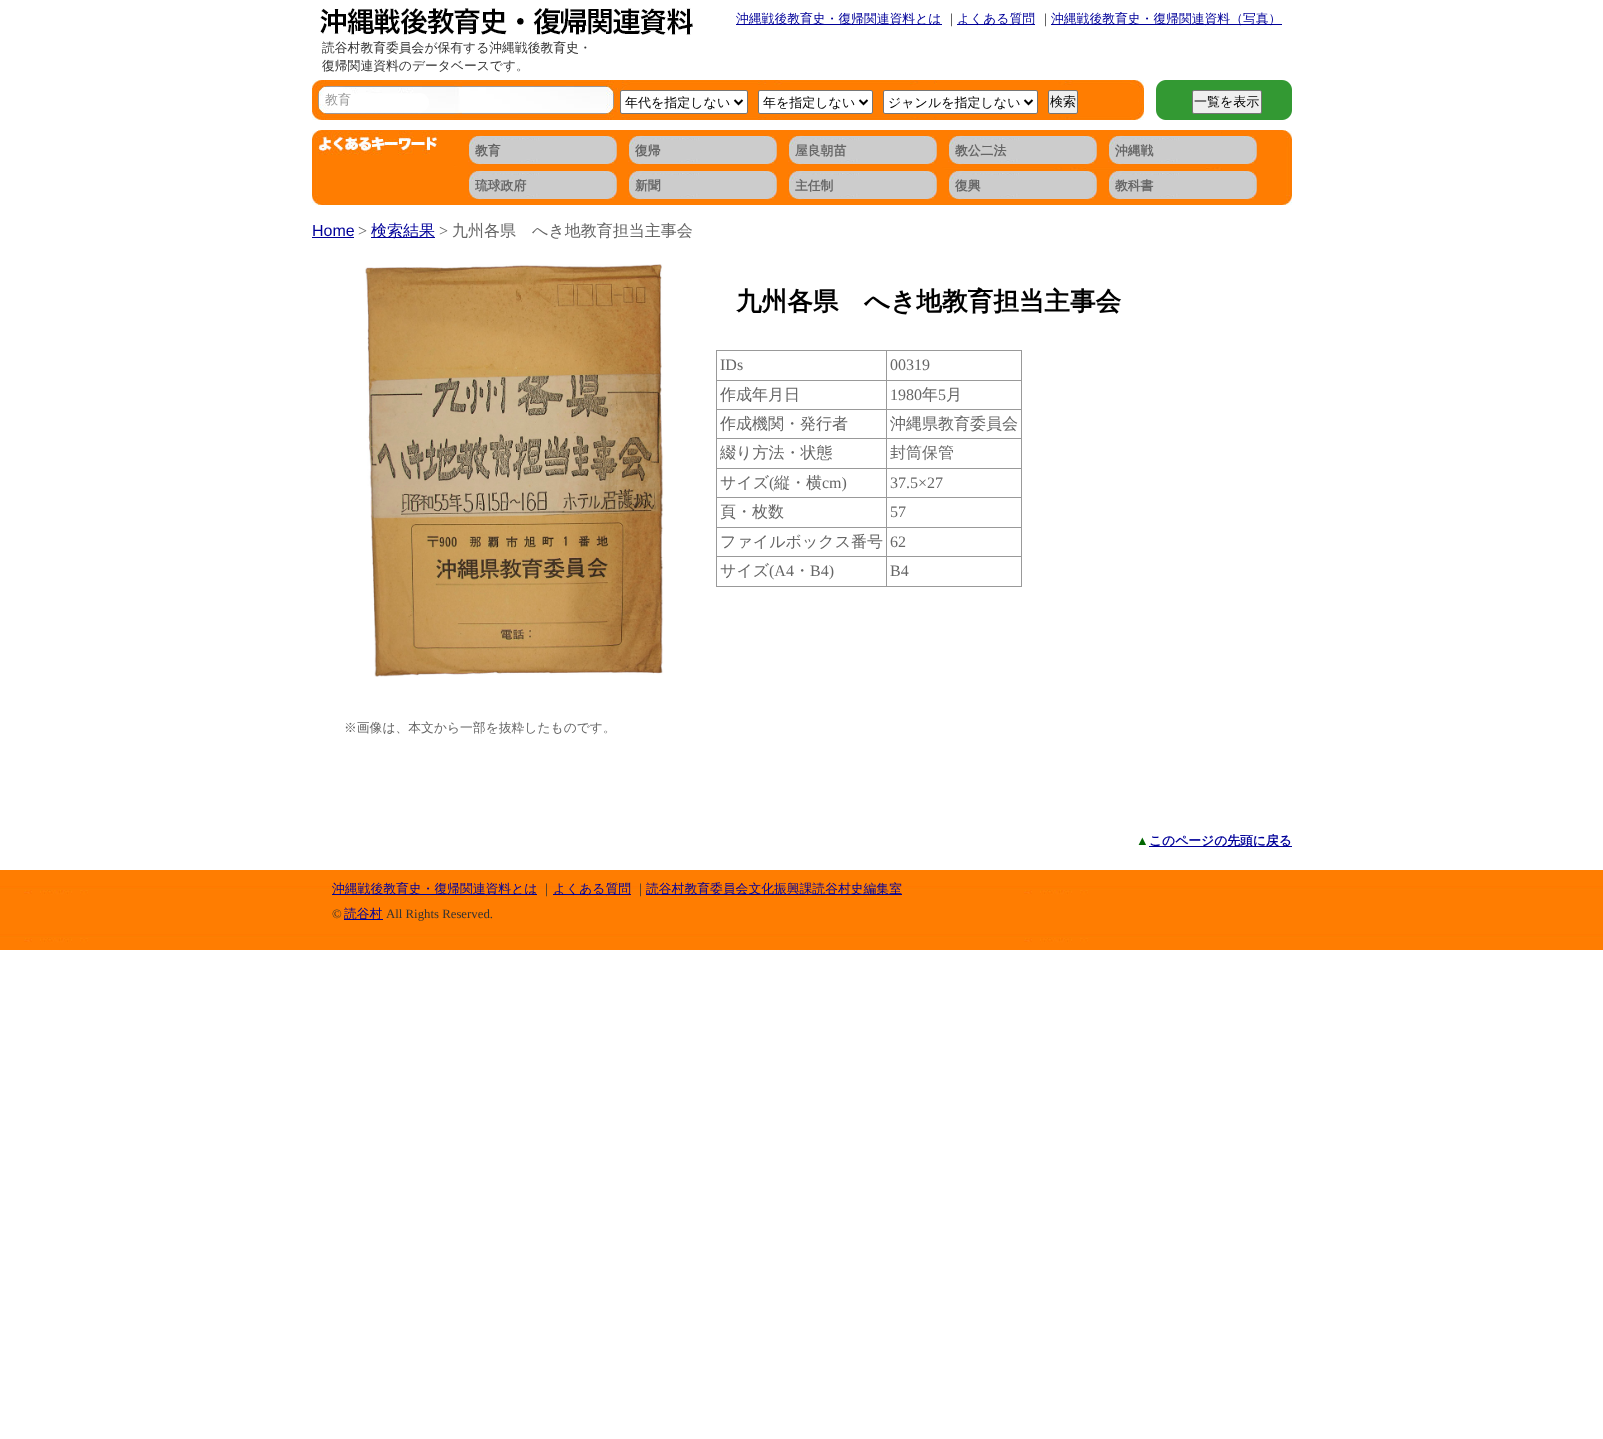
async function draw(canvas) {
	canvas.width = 1603;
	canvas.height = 1439;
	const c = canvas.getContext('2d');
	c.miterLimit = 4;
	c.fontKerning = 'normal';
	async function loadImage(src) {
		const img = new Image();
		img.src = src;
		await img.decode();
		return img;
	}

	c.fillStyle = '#fff';
	c.fillRect(0, 0, 1603, 1439);
	c.drawImage(await loadImage('img1.png'), 320, 8, 373, 27);
	c.fillStyle = '#009';
	c.fillRect(736, 24, 206, 1);
	c.font = '500 12.8px WenQuanYi Zen Hei';
	c.fillText('沖縄戦後教育史・復帰関連資料とは', 736, 23);
	c.fillStyle = '#333';
	c.fillText('｜', 945, 23);
	c.fillStyle = '#009';
	c.fillRect(957, 24, 78, 1);
	c.fillText('よくある質問', 957, 23);
	c.fillStyle = '#333';
	c.fillText('｜', 1039, 23);
	c.fillStyle = '#009';
	c.fillRect(1051, 24, 231, 1);
	c.fillText('沖縄戦後教育史・復帰関連資料（写真）', 1051, 23);
	c.fillStyle = '#333';
	c.fillText('読谷村教育委員会が保有する沖縄戦後教育史・', 322, 52);
	c.fillText('復帰関連資料のデータベースです。', 322, 70);
	c.drawImage(await loadImage('img2.png'), 312, 80, 980, 40);
	c.font = '500 13px WenQuanYi Zen Hei';
	c.fillStyle = '#999';
	c.fillText('教育', 325, 104);
	c.fillStyle = '#fff';
	c.beginPath();
	c.roundRect(620.5, 90.5, 127, 23, 1.5);
	c.fill();
	c.strokeStyle = '#767676';
	c.stroke();
	c.beginPath();
	c.moveTo(734.5, 100);
	c.lineTo(738.5, 104);
	c.lineTo(742.5, 100);
	c.strokeStyle = '#000';
	c.lineWidth = 2;
	c.stroke();
	c.fillStyle = '#000';
	c.fillText('年代を指定しない', 625, 107);
	c.fillStyle = '#fff';
	c.beginPath();
	c.roundRect(758.5, 90.5, 114, 23, 1.5);
	c.fill();
	c.strokeStyle = '#767676';
	c.lineWidth = 1;
	c.stroke();
	c.beginPath();
	c.moveTo(859.5, 100);
	c.lineTo(863.5, 104);
	c.lineTo(867.5, 100);
	c.strokeStyle = '#000';
	c.lineWidth = 2;
	c.stroke();
	c.fillStyle = '#000';
	c.fillText('年を指定しない', 763, 107);
	c.fillStyle = '#fff';
	c.beginPath();
	c.roundRect(883.5, 90.5, 154, 23, 1.5);
	c.fill();
	c.strokeStyle = '#767676';
	c.lineWidth = 1;
	c.stroke();
	c.beginPath();
	c.moveTo(1024.5, 100);
	c.lineTo(1028.5, 104);
	c.lineTo(1032.5, 100);
	c.strokeStyle = '#000';
	c.lineWidth = 2;
	c.stroke();
	c.fillStyle = '#000';
	c.fillText('ジャンルを指定しない', 888, 107);
	c.fillStyle = '#efefef';
	c.beginPath();
	c.roundRect(1048.5, 90.5, 29, 23, 1.5);
	c.fill();
	c.strokeStyle = '#767676';
	c.lineWidth = 1;
	c.stroke();
	c.fillStyle = '#000';
	c.fillText('検索', 1050, 106);
	c.fillStyle = '#efefef';
	c.beginPath();
	c.roundRect(1192.5, 90.5, 69, 23, 1.5);
	c.fill();
	c.stroke();
	c.fillStyle = '#000';
	c.fillText('一覧を表示', 1194, 106);
	c.drawImage(await loadImage('img3.png'), 312, 130, 980, 75);
	c.drawImage(await loadImage('img4.png'), 468, 135, 150, 30);
	c.font = 'bold 12.8px WenQuanYi Zen Hei';
	c.fillStyle = '#666';
	c.fillText('教育', 475, 155);
	c.drawImage(await loadImage('img4.png'), 628, 135, 150, 30);
	c.fillText('復帰', 635, 155);
	c.drawImage(await loadImage('img4.png'), 788, 135, 150, 30);
	c.fillText('屋良朝苗', 795, 155);
	c.drawImage(await loadImage('img4.png'), 948, 135, 150, 30);
	c.fillText('教公二法', 955, 155);
	c.drawImage(await loadImage('img4.png'), 1108, 135, 150, 30);
	c.fillText('沖縄戦', 1115, 155);
	c.drawImage(await loadImage('img4.png'), 468, 170, 150, 30);
	c.fillText('琉球政府', 475, 190);
	c.drawImage(await loadImage('img4.png'), 628, 170, 150, 30);
	c.fillText('新聞', 635, 190);
	c.drawImage(await loadImage('img4.png'), 788, 170, 150, 30);
	c.fillText('主任制', 795, 190);
	c.drawImage(await loadImage('img4.png'), 948, 170, 150, 30);
	c.fillText('復興', 955, 190);
	c.drawImage(await loadImage('img4.png'), 1108, 170, 150, 30);
	c.fillText('教科書', 1115, 190);
	c.font = '16px Liberation Sans';
	c.fillStyle = '#009';
	c.fillText('Home', 312, 236);
	c.fillRect(312, 237, 42, 1);
	c.font = '16px Liberation Serif';
	c.fillStyle = '#666';
	c.fillText('>', 358, 236);
	c.fillStyle = '#009';
	c.fillRect(371, 237, 64, 1);
	c.font = '500 16px WenQuanYi Zen Hei';
	c.fillText('検索結果', 371, 236);
	c.font = '16px Liberation Serif';
	c.fillStyle = '#666';
	c.fillText('>', 439, 236);
	c.font = '500 16px WenQuanYi Zen Hei';
	c.fillText('九州各県　へき地教育担当主事会', 452, 236);
	c.drawImage(await loadImage('img5.png'), 365, 264, 299, 413);
	c.font = 'bold 25.6px WenQuanYi Zen Hei';
	c.fillStyle = '#000';
	c.fillText('九州各県　へき地教育担当主事会', 736, 310);
	for (const [x, y, w, h, color] of [
		[716, 350, 306, 1, '#999'],
		[1021, 350, 1, 237, '#999'],
		[716, 586, 306, 1, '#999'],
		[716, 350, 1, 237, '#999'],
	]) {
		c.fillStyle = color;
		c.fillRect(x, y, w, h);
	}
	c.font = '16px Liberation Serif';
	c.fillStyle = '#666';
	c.fillText('IDs', 720, 370);
	for (const [x, y, w, h, color] of [
		[886, 380, 136, 1, '#999'],
		[886, 409, 136, 1, '#999'],
		[886, 438, 136, 1, '#999'],
		[886, 468, 136, 1, '#999'],
		[886, 497, 136, 1, '#999'],
		[886, 527, 136, 1, '#999'],
		[886, 556, 136, 1, '#999'],
		[886, 556, 1, 31, '#999'],
		[716, 556, 171, 1, '#999'],
		[886, 527, 1, 30, '#999'],
		[716, 527, 171, 1, '#999'],
		[886, 497, 1, 31, '#999'],
		[716, 497, 171, 1, '#999'],
		[886, 468, 1, 30, '#999'],
		[716, 468, 171, 1, '#999'],
		[886, 438, 1, 31, '#999'],
		[716, 438, 171, 1, '#999'],
		[886, 409, 1, 30, '#999'],
		[716, 409, 171, 1, '#999'],
		[886, 380, 1, 30, '#999'],
		[716, 380, 171, 1, '#999'],
		[886, 350, 1, 31, '#999'],
	]) {
		c.fillStyle = color;
		c.fillRect(x, y, w, h);
	}
	c.fillStyle = '#666';
	c.fillText('00319', 890, 370);
	c.font = '500 16px WenQuanYi Zen Hei';
	c.fillText('作成年月日', 720, 400);
	c.font = '16px Liberation Serif';
	c.fillText('1980', 890, 400);
	c.font = '500 16px WenQuanYi Zen Hei';
	c.fillText('年', 922, 400);
	c.font = '16px Liberation Serif';
	c.fillText('5', 938, 400);
	c.font = '500 16px WenQuanYi Zen Hei';
	for (const [text, x, y] of [
		['月', 946, 400],
		['作成機関・発行者', 720, 429],
		['沖縄県教育委員会', 890, 429],
		['綴り方法・状態', 720, 458],
		['封筒保管', 890, 458],
		['サイズ', 720, 488],
	]) {
		c.fillText(text, x, y);
	}
	c.font = '16px Liberation Serif';
	c.fillText('(', 769, 488);
	c.font = '500 16px WenQuanYi Zen Hei';
	c.fillText('縦・横', 774, 488);
	c.font = '16px Liberation Serif';
	c.fillText('cm)', 822, 488);
	c.fillText('37.5×27', 890, 488);
	c.font = '500 16px WenQuanYi Zen Hei';
	c.fillText('頁・枚数', 720, 517);
	c.font = '16px Liberation Serif';
	c.fillText('57', 890, 517);
	c.font = '500 16px WenQuanYi Zen Hei';
	c.fillText('ファイルボックス番号', 720, 547);
	c.font = '16px Liberation Serif';
	c.fillText('62', 890, 547);
	c.font = '500 16px WenQuanYi Zen Hei';
	c.fillText('サイズ', 720, 576);
	c.font = '16px Liberation Serif';
	c.fillText('(A4', 769, 576);
	c.font = '500 16px WenQuanYi Zen Hei';
	c.fillText('・', 794, 576);
	c.font = '16px Liberation Serif';
	c.fillText('B4)', 810, 576);
	c.fillText('B4', 890, 576);
	c.font = '500 12.8px WenQuanYi Zen Hei';
	c.fillText('※画像は、本文から一部を抜粋したものです。', 344, 732);
	c.font = 'bold 12.8px Liberation Sans';
	c.fillStyle = '#060';
	c.fillText('▲', 1136, 845);
	c.fillStyle = '#009';
	c.fillRect(1149, 846, 143, 1);
	c.font = 'bold 12.8px WenQuanYi Zen Hei';
	c.fillText('このページの先頭に戻る', 1149, 845);
	c.drawImage(await loadImage('img6.png'), 0, 870, 1603, 80);
	c.fillRect(332, 894, 205, 1);
	c.font = '500 12.8px WenQuanYi Zen Hei';
	c.fillText('沖縄戦後教育史・復帰関連資料とは', 332, 893);
	c.fillStyle = '#333';
	c.fillText('｜', 540, 893);
	c.fillStyle = '#009';
	c.fillRect(553, 894, 78, 1);
	c.fillText('よくある質問', 553, 893);
	c.fillStyle = '#333';
	c.fillText('｜', 634, 893);
	c.fillStyle = '#009';
	c.fillRect(646, 894, 256, 1);
	c.fillText('読谷村教育委員会文化振興課読谷村史編集室', 646, 893);
	c.font = '12.8px Liberation Serif';
	c.fillStyle = '#333';
	c.fillText('©', 332, 918);
	c.fillStyle = '#009';
	c.fillRect(344, 919, 39, 1);
	c.font = '500 12.8px WenQuanYi Zen Hei';
	c.fillText('読谷村', 344, 918);
	c.font = '12.8px Liberation Serif';
	c.fillStyle = '#333';
	c.fillText('All Rights Reserved.', 386, 918);
}

draw(document.querySelector('canvas'));
